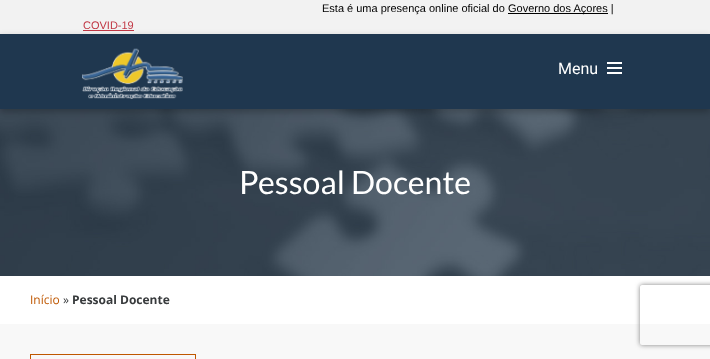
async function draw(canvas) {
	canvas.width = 710;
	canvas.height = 359;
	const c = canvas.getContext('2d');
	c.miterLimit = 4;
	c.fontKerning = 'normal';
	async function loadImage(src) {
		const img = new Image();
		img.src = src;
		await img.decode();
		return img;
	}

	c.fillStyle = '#fff';
	c.fillRect(0, 0, 710, 359);
	c.fillStyle = '#f2f2f2';
	c.fillRect(0, 0, 710, 34);
	c.font = '11px Liberation Sans';
	c.fillStyle = '#000';
	c.fillText('Esta é uma presença online oficial do', 322, 12);
	c.fillRect(508, 13, 100, 1);
	c.fillText('Governo dos Açores |', 508, 12);
	c.fillStyle = '#c13744';
	c.fillText('COVID-19', 83, 29);
	c.fillRect(83, 30, 51, 1);
	c.drawImage(await loadImage('img2.png'), 0, 109, 710, 167);
	c.fillStyle = '#00000040';
	c.filter = 'blur(3.5px)';
	c.beginPath();
	c.rect(0, 37, 710, 75);
	c.fill();
	c.filter = 'none';
	c.fillStyle = '#1f374f';
	c.fillRect(0, 34, 710, 75);
	c.drawImage(await loadImage('img1.png'), 82, 48, 101, 51);
	c.font = '16px Roboto';
	c.fillStyle = '#fff';
	c.fillText('Menu', 558, 74);
	for (const [x, y, w, h, color] of [
		[607, 62, 15, 2, '#fff'],
		[607, 67, 15, 2, '#fff'],
		[607, 72, 15, 2, '#fff'],
	]) {
		c.fillStyle = color;
		c.fillRect(x, y, w, h);
	}
	c.font = '32px Lato';
	c.fillText('Pessoal Docente', 239, 194);
	c.fillStyle = '#f8f8f8';
	c.fillRect(0, 324, 710, 35);
	c.font = '12px Open Sans';
	c.fillStyle = '#bf5700';
	c.fillText('Início', 30, 304);
	c.fillStyle = '#373a3c';
	c.fillText('»', 63, 304);
	c.font = 'bold 12px Open Sans';
	c.fillText('Pessoal Docente', 72, 304);
	c.strokeStyle = '#bf5700';
	c.strokeRect(30.5, 354.5, 165, 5);
	c.save();
	c.beginPath();
	c.moveTo(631, 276);
	c.lineTo(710, 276);
	c.lineTo(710, 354);
	c.lineTo(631, 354);
	c.closePath();
	c.moveTo(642, 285);
	c.lineTo(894, 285);
	c.bezierCurveTo(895, 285, 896, 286, 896, 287);
	c.lineTo(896, 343);
	c.bezierCurveTo(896, 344, 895, 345, 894, 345);
	c.lineTo(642, 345);
	c.bezierCurveTo(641, 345, 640, 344, 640, 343);
	c.lineTo(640, 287);
	c.bezierCurveTo(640, 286, 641, 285, 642, 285);
	c.closePath();
	c.clip('evenodd');
	c.fillStyle = '#808080';
	c.filter = 'blur(2.5px)';
	c.beginPath();
	c.roundRect(640, 285, 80, 60, 2);
	c.fill();
	c.filter = 'none';
	c.restore();
}

draw(document.querySelector('canvas'));
